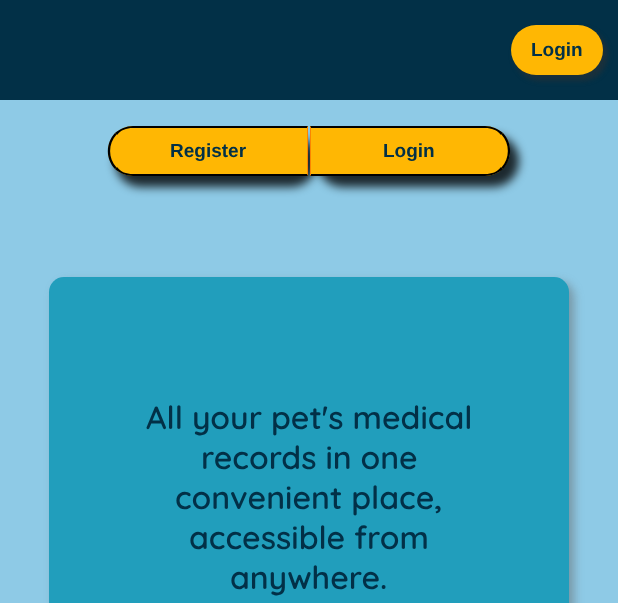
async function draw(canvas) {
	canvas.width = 618;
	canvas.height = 603;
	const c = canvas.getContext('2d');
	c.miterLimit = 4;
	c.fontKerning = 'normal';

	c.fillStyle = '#8ecae6';
	c.fillRect(0, 0, 618, 603);
	c.fillStyle = '#023047';
	c.fillRect(0, 0, 618, 100);
	c.fillStyle = '#30303080';
	c.filter = 'blur(2.5px)';
	c.beginPath();
	c.roundRect(514, 29, 94, 52, 26);
	c.fill();
	c.filter = 'none';
	c.fillStyle = '#ffb703';
	c.beginPath();
	c.roundRect(511, 25, 92, 50, 25);
	c.fill();
	c.font = 'bold 19px Liberation Sans';
	c.fillStyle = '#023047';
	c.fillText('Login', 531, 56);
	c.fillStyle = '#000000cc';
	c.filter = 'blur(5px)';
	c.beginPath();
	c.roundRect(115, 135, 202, 52, 26);
	c.fill();
	c.filter = 'none';
	c.fillStyle = '#ffb703';
	c.beginPath();
	c.roundRect(108, 126, 200, 50, [25, 0, 0, 25]);
	c.fill();
	c.fillStyle = '#000';
	c.beginPath();
	c.moveTo(133, 126);
	c.bezierCurveTo(126, 126, 120, 129, 115, 133);
	c.lineTo(117, 135);
	c.bezierCurveTo(121, 130, 126, 128, 133, 128);
	c.lineTo(307, 128);
	c.lineTo(308, 126);
	c.closePath();
	c.fill();
	c.fillStyle = '#fb8500';
	c.beginPath();
	c.moveTo(308, 126);
	c.lineTo(307, 128);
	c.lineTo(307, 174);
	c.lineTo(308, 176);
	c.closePath();
	c.fill();
	c.fillStyle = '#000';
	c.beginPath();
	c.moveTo(308, 176);
	c.lineTo(307, 174);
	c.lineTo(133, 174);
	c.bezierCurveTo(126, 174, 121, 172, 117, 167);
	c.lineTo(115, 169);
	c.bezierCurveTo(120, 173, 126, 176, 133, 176);
	c.closePath();
	c.fill();
	c.beginPath();
	c.moveTo(115, 169);
	c.bezierCurveTo(105.5, 159, 105.5, 143, 115, 133);
	c.lineTo(116.5, 134.5);
	c.bezierCurveTo(108, 143.5, 108, 158.5, 116.5, 167.5);
	c.closePath();
	c.fill();
	c.fillStyle = '#023047';
	c.fillText('Register', 170, 157);
	c.fillStyle = '#000000cc';
	c.filter = 'blur(5px)';
	c.beginPath();
	c.roundRect(317, 135, 202, 52, 26);
	c.fill();
	c.filter = 'none';
	c.fillStyle = '#ffb703';
	c.beginPath();
	c.roundRect(310, 126, 200, 50, [0, 25, 25, 0]);
	c.fill();
	c.fillStyle = '#000';
	c.beginPath();
	c.moveTo(310, 126);
	c.lineTo(311, 128);
	c.lineTo(485, 128);
	c.bezierCurveTo(492, 128, 497, 130, 501, 135);
	c.lineTo(503, 133);
	c.bezierCurveTo(498, 129, 492, 126, 485, 126);
	c.closePath();
	c.fill();
	c.beginPath();
	c.moveTo(503, 133);
	c.bezierCurveTo(512.5, 143, 512.5, 159, 503, 169);
	c.lineTo(501.5, 167.5);
	c.bezierCurveTo(510, 158.5, 510, 143.5, 501.5, 134.5);
	c.closePath();
	c.fill();
	c.beginPath();
	c.moveTo(485, 176);
	c.bezierCurveTo(492, 176, 498, 173, 503, 169);
	c.lineTo(501, 167);
	c.bezierCurveTo(497, 172, 492, 174, 485, 174);
	c.lineTo(311, 174);
	c.lineTo(310, 176);
	c.closePath();
	c.fill();
	c.fillStyle = '#fb8500';
	c.beginPath();
	c.moveTo(310, 126);
	c.lineTo(310, 176);
	c.lineTo(311, 174);
	c.lineTo(311, 128);
	c.closePath();
	c.fill();
	c.fillStyle = '#023047';
	c.fillText('Login', 383, 157);
	c.fillStyle = '#6060607a';
	c.filter = 'blur(5px)';
	c.beginPath();
	c.roundRect(54, 282, 520, 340, 15);
	c.fill();
	c.filter = 'none';
	c.fillStyle = '#219ebc';
	c.beginPath();
	c.roundRect(49, 277, 520, 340, 15);
	c.fill();
	c.font = '600 32px Quicksand';
	c.fillStyle = '#023047';
	for (const [text, x, y] of [
		['All your pet\'s medical', 146, 429],
		['records in one', 201, 469],
		['convenient place,', 175, 509],
		['accessible from', 189, 549],
		['anywhere.', 230, 589],
	]) {
		c.fillText(text, x, y);
	}
}

draw(document.querySelector('canvas'));
